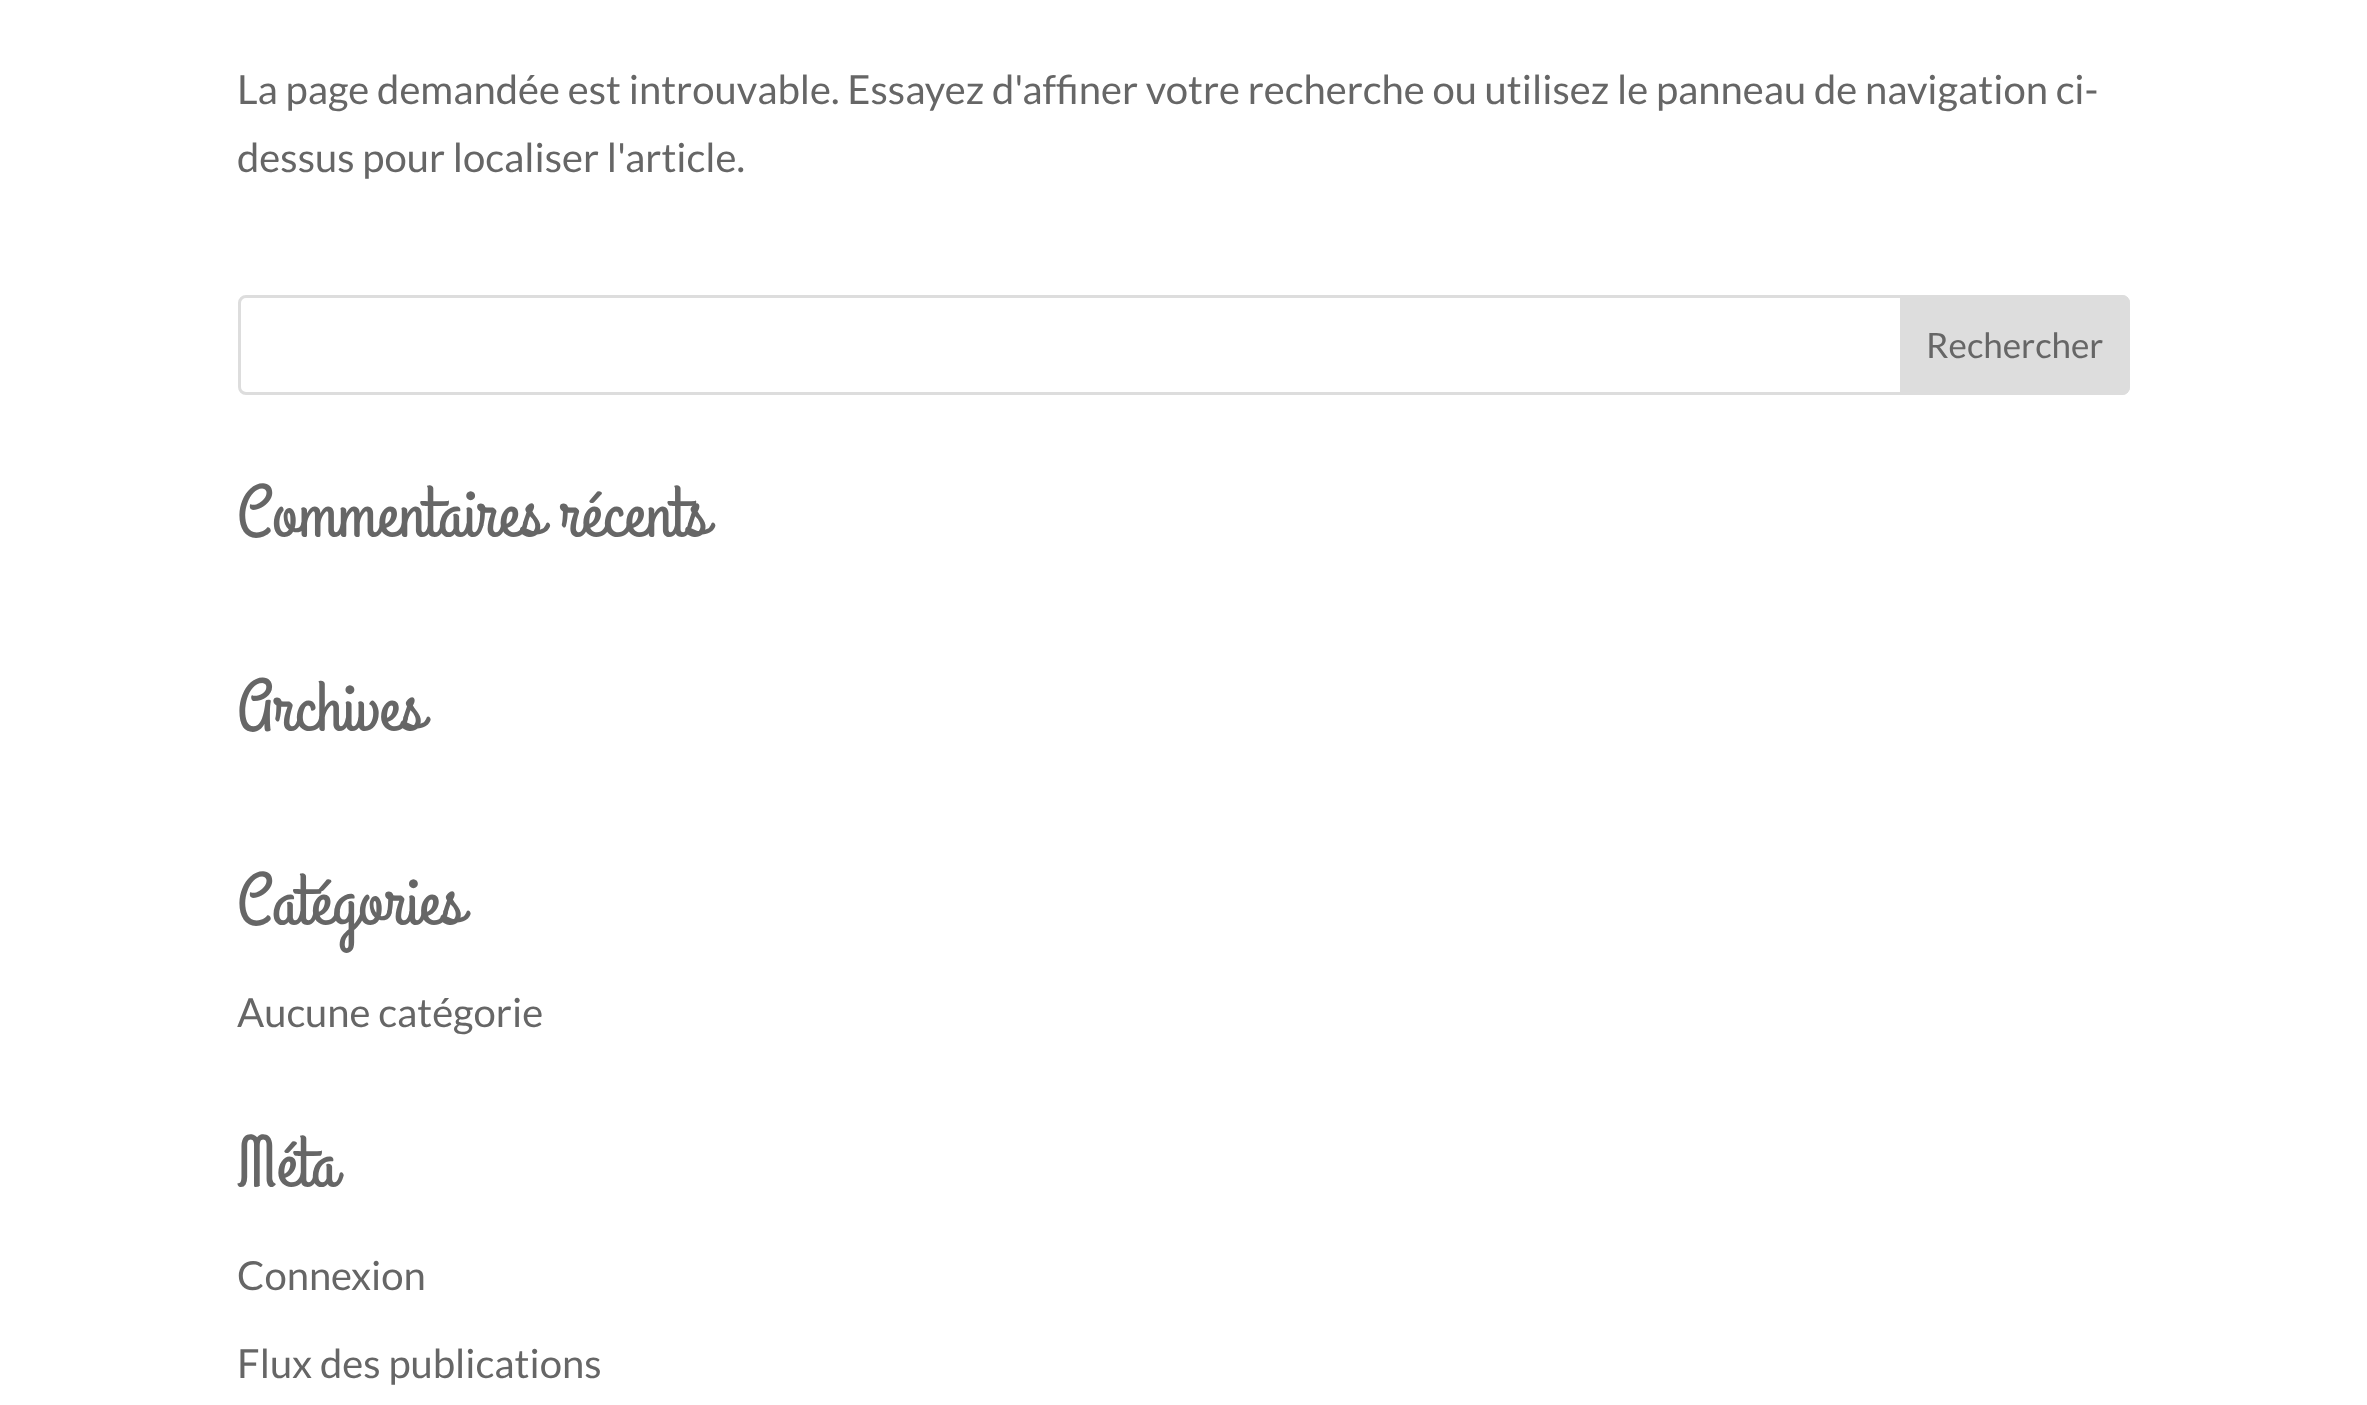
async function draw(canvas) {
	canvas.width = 2367;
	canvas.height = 1405;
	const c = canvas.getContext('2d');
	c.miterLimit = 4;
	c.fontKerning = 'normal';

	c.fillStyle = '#fff';
	c.fillRect(0, 0, 2367, 1405);
	c.font = '40px Lato';
	c.fillStyle = '#666';
	c.fillText('La page demandée est introuvable. Essayez d\'affiner votre recherche ou utilisez le panneau de navigation ci-', 237, 104);
	c.fillText('dessus pour localiser l\'article.', 237, 172);
	c.beginPath();
	c.roundRect(239.5, 296.5, 1889, 97, 6.5);
	c.strokeStyle = '#ddd';
	c.lineWidth = 3;
	c.stroke();
	c.fillStyle = '#ddd';
	c.beginPath();
	c.roundRect(1901.5, 296.5, 227, 97, [0, 6.5, 6.5, 0]);
	c.fill();
	c.stroke();
	c.font = '35px Lato';
	c.fillStyle = '#666';
	c.fillText('Rechercher', 1926, 358);
	c.font = '72.5px Grand Hotel';
	for (const [text, x, y] of [
		['Commentaires récents', 237, 535],
		['Archives', 237, 729],
		['Catégories', 237, 923],
	]) {
		c.fillText(text, x, y);
	}
	c.font = '40px Lato';
	c.fillText('Aucune catégorie', 237, 1027);
	c.font = '72.5px Grand Hotel';
	c.fillText('Méta', 237, 1185);
	c.font = '40px Lato';
	c.fillText('Connexion', 237, 1290);
	c.fillText('Flux des publications', 237, 1378);
}

draw(document.querySelector('canvas'));
